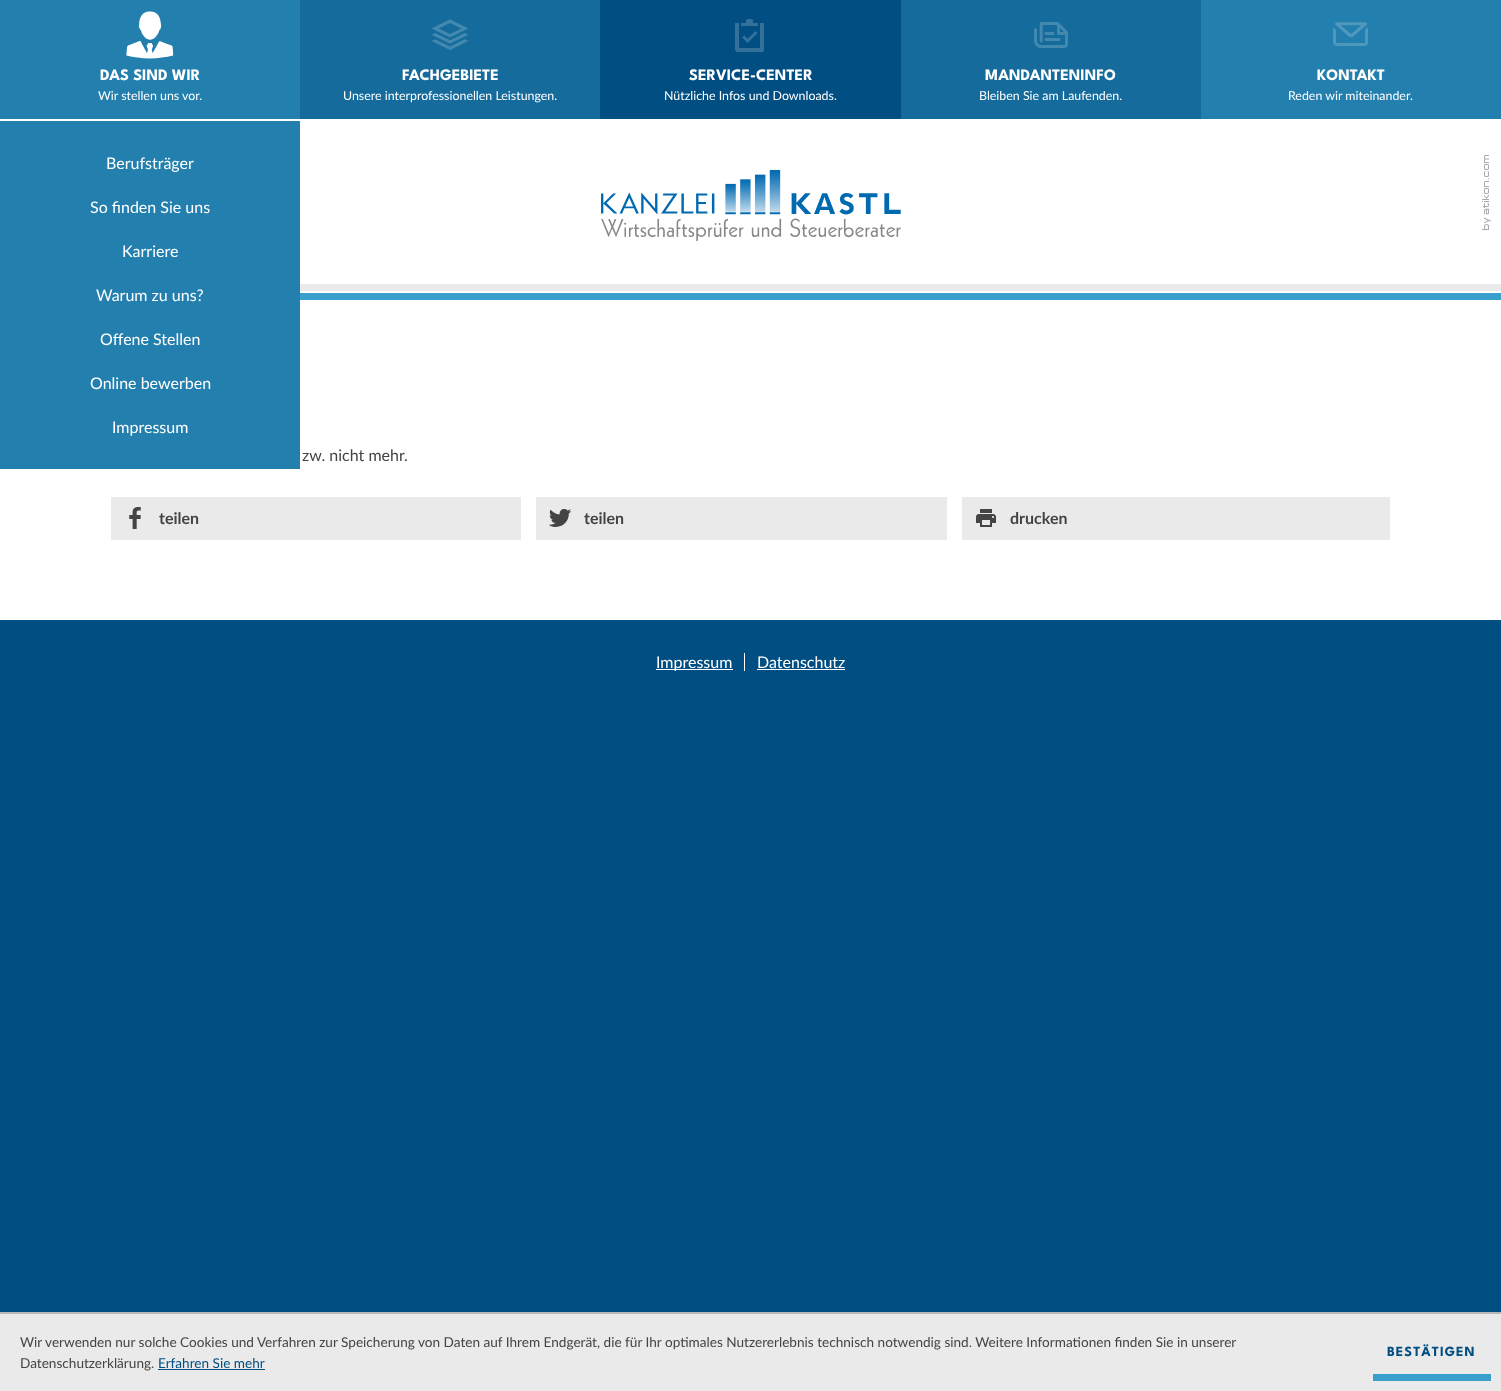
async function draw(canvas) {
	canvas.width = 1501;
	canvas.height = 1391;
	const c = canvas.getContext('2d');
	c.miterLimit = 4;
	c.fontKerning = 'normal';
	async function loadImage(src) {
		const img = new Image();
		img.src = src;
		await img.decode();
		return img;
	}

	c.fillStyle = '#004e82';
	c.fillRect(0, 0, 1501, 1391);
	c.fillStyle = '#fff';
	c.fillRect(300, 119, 1201, 165);
	c.fillStyle = '#227fae';
	c.fillRect(0, 0, 300, 119);
	c.drawImage(await loadImage('img1.png'), 126, 11, 48, 48);
	c.font = 'bold 16px League Spartan';
	c.fillStyle = '#fff';
	c.fillText('DAS SIND WIR', 100, 80);
	c.font = '12.4px Lato';
	c.fillText('Wir stellen uns vor.', 98, 100);
	for (const [x, y, w, h, color] of [
		[0, 119, 300, 2, '#fff'],
		[0, 291, 1501, 329, '#fff'],
		[0, 121, 300, 348, '#227fae'],
	]) {
		c.fillStyle = color;
		c.fillRect(x, y, w, h);
	}
	c.font = '16px Lato';
	c.fillStyle = '#fff';
	for (const [text, x, y] of [
		['Berufsträger', 106, 169],
		['So finden Sie uns', 90, 213],
		['Karriere', 122, 257],
		['Warum zu uns?', 96, 301],
		['Offene Stellen', 100, 345],
		['Online bewerben', 90, 389],
		['Impressum', 112, 433],
	]) {
		c.fillText(text, x, y);
	}
	c.fillStyle = '#146b9c';
	c.fillRect(300, 0, 300, 119);
	c.drawImage(await loadImage('img2.png'), 431, 19, 37, 31);
	c.font = 'bold 16px League Spartan';
	c.fillStyle = '#fff';
	c.fillText('FACHGEBIETE', 402, 80);
	c.font = '12.4px Lato';
	c.fillText('Unsere interprofessionellen Leistungen.', 343, 100);
	c.drawImage(await loadImage('img3.png'), 735, 19, 29, 33);
	c.font = 'bold 16px League Spartan';
	c.fillText('SERVICE-CENTER', 689, 80);
	c.font = '12.4px Lato';
	c.fillText('Nützliche Infos und Downloads.', 664, 100);
	c.fillStyle = '#146b9c';
	c.fillRect(901, 0, 300, 119);
	c.drawImage(await loadImage('img4.png'), 1034, 22, 34, 26);
	c.font = 'bold 16px League Spartan';
	c.fillStyle = '#fff';
	c.fillText('MANDANTENINFO', 985, 80);
	c.font = '12.4px Lato';
	c.fillText('Bleiben Sie am Laufenden.', 979, 100);
	c.fillStyle = '#227fae';
	c.fillRect(1201, 0, 300, 119);
	c.drawImage(await loadImage('img5.png'), 1333, 22, 35, 24);
	c.font = 'bold 16px League Spartan';
	c.fillStyle = '#fff';
	c.fillText('KONTAKT', 1317, 80);
	c.font = '12.4px Lato';
	c.fillText('Reden wir miteinander.', 1288, 100);
	c.drawImage(await loadImage('img6.png'), 1482, 155, 9, 75);
	c.drawImage(await loadImage('img7.png'), 601, 170, 300, 71);
	c.fillStyle = '#eaeaea';
	c.fillRect(300, 284, 1201, 7);
	c.fillStyle = '#399fcc';
	c.fillRect(300, 293, 1201, 7);
	c.font = '16px Lato';
	c.fillStyle = '#444';
	c.fillText('zw. nicht mehr.', 302, 461);
	c.fillStyle = '#eaeaea';
	c.fillRect(111, 497, 410, 43);
	c.drawImage(await loadImage('img8.png'), 129, 507, 12, 22);
	c.font = 'bold 16px Lato';
	c.fillStyle = '#444';
	c.fillText('teilen', 159, 524);
	c.fillStyle = '#eaeaea';
	c.fillRect(536, 497, 411, 43);
	c.drawImage(await loadImage('img9.png'), 549, 509, 22, 18);
	c.fillStyle = '#444';
	c.fillText('teilen', 584, 524);
	c.fillStyle = '#eaeaea';
	c.fillRect(962, 497, 428, 43);
	c.drawImage(await loadImage('img10.png'), 976, 509, 20, 18);
	c.fillStyle = '#444';
	c.fillText('drucken', 1010, 524);
	c.fillStyle = '#fff';
	c.fillRect(656, 669, 77, 1);
	c.font = '16px Lato';
	c.fillText('Impressum', 656, 668);
	c.fillRect(744, 653, 1, 18);
	c.fillText('Datenschutz', 757, 668);
	for (const [x, y, w, h, color] of [
		[757, 669, 88, 1, '#fff'],
		[0, 1314, 1501, 77, '#eaeaea'],
		[0, 1312, 1501, 2, '#b7b7b7'],
	]) {
		c.fillStyle = color;
		c.fillRect(x, y, w, h);
	}
	c.font = '13.6px Lato';
	c.fillStyle = '#444';
	c.fillText('Wir verwenden nur solche Cookies und Verfahren zur Speicherung von Daten auf Ihrem Endgerät, die für Ihr optimales Nutzererlebnis technisch notwendig sind. Weitere Informationen finden Sie in unserer', 20, 1347);
	c.fillText('Datenschutzerklärung.', 20, 1368);
	c.fillStyle = '#004e82';
	c.fillText('Erfahren Sie mehr', 158, 1368);
	c.fillRect(158, 1369, 107, 1);
	c.fillStyle = '#399fcc';
	c.fillRect(1373, 1374, 118, 7);
	c.letterSpacing = '1px';
	c.font = 'bold 14px League Spartan';
	c.fillStyle = '#004e82';
	c.fillText('BESTÄTIGEN', 1387, 1356);
}

draw(document.querySelector('canvas'));
